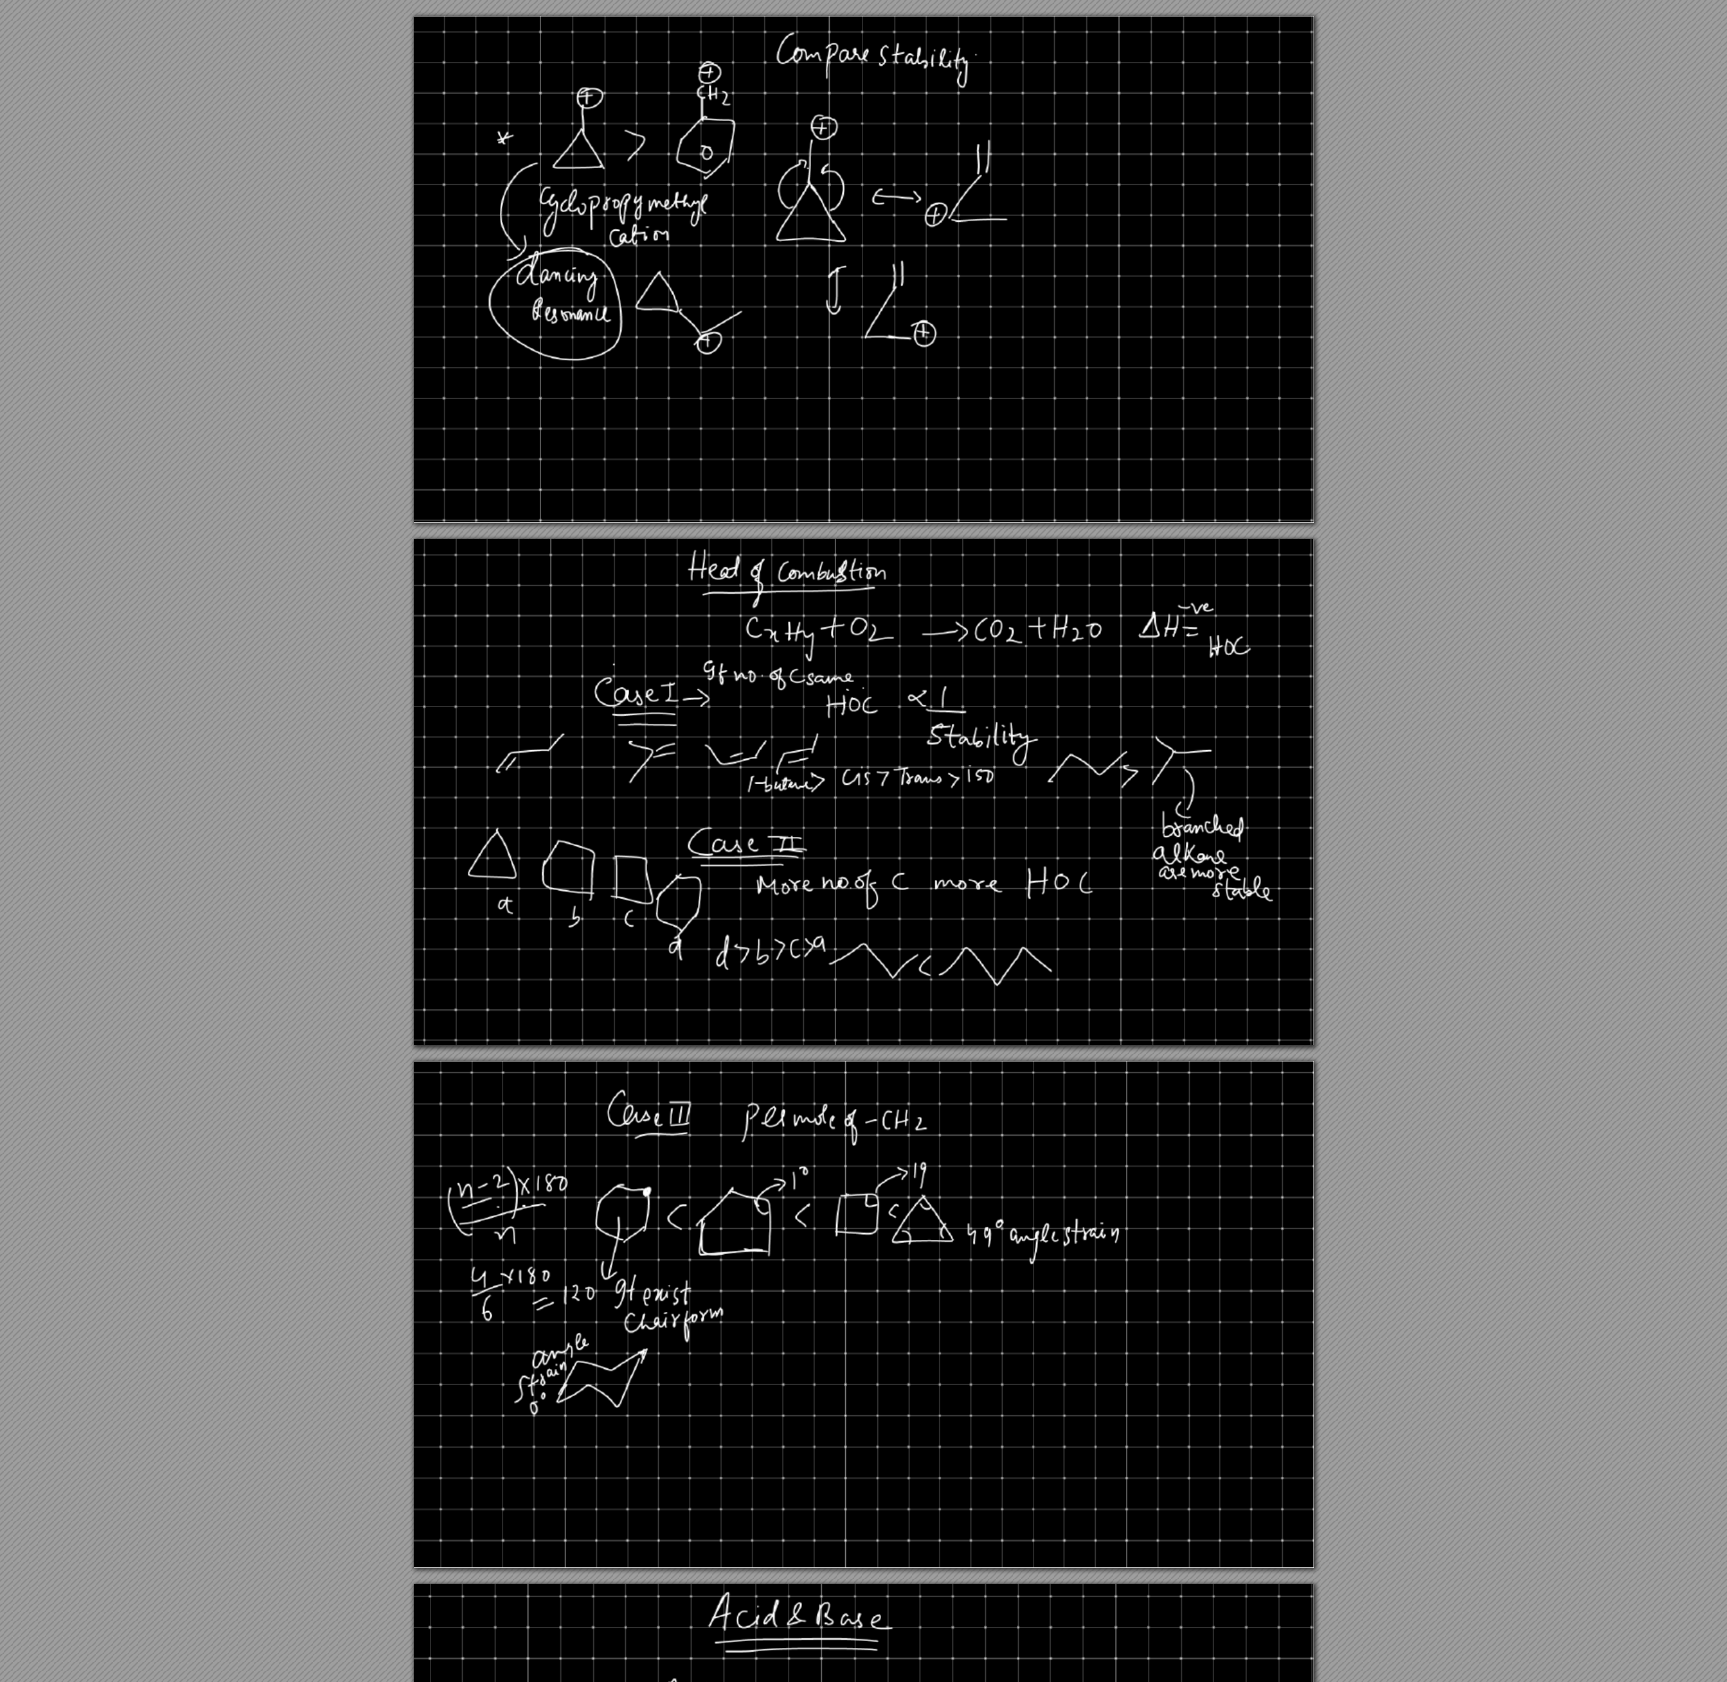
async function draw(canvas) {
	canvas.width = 1727;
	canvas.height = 1682;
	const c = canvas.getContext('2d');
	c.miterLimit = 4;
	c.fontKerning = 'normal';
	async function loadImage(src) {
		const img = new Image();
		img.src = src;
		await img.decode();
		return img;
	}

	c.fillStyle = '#fff';
	c.fillRect(0, 0, 1727, 1682);
	c.drawImage(await loadImage('img1.png'), 0, 0, 1727, 1682);
	c.fillStyle = '#333';
	c.filter = 'blur(2px)';
	c.beginPath();
	c.rect(414, 16, 902, 509);
	c.fill();
	c.filter = 'none';
	c.fillStyle = '#fff';
	c.fillRect(414, 16, 900, 507);
	c.drawImage(await loadImage('img2.png'), 413, 16, 901, 507);
	c.fillStyle = '#333';
	c.filter = 'blur(2px)';
	c.beginPath();
	c.rect(414, 539, 902, 509);
	c.fill();
	c.filter = 'none';
	c.fillStyle = '#fff';
	c.fillRect(1313, 539, 1, 506);
	c.drawImage(await loadImage('img3.png'), 413, 538, 901, 507);
	c.fillStyle = '#333';
	c.filter = 'blur(2px)';
	c.beginPath();
	c.rect(414, 1061, 902, 509);
	c.fill();
	c.filter = 'none';
	c.fillStyle = '#fff';
	c.fillRect(414, 1061, 900, 507);
	c.drawImage(await loadImage('img4.png'), 413, 1061, 901, 507);
	c.fillStyle = '#333';
	c.filter = 'blur(2px)';
	c.beginPath();
	c.rect(414, 1584, 902, 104);
	c.fill();
	c.filter = 'none';
	c.fillStyle = '#fff';
	c.fillRect(1313, 1584, 1, 98);
	c.drawImage(await loadImage('img5.png'), 413, 1583, 901, 99);
}

draw(document.querySelector('canvas'));
